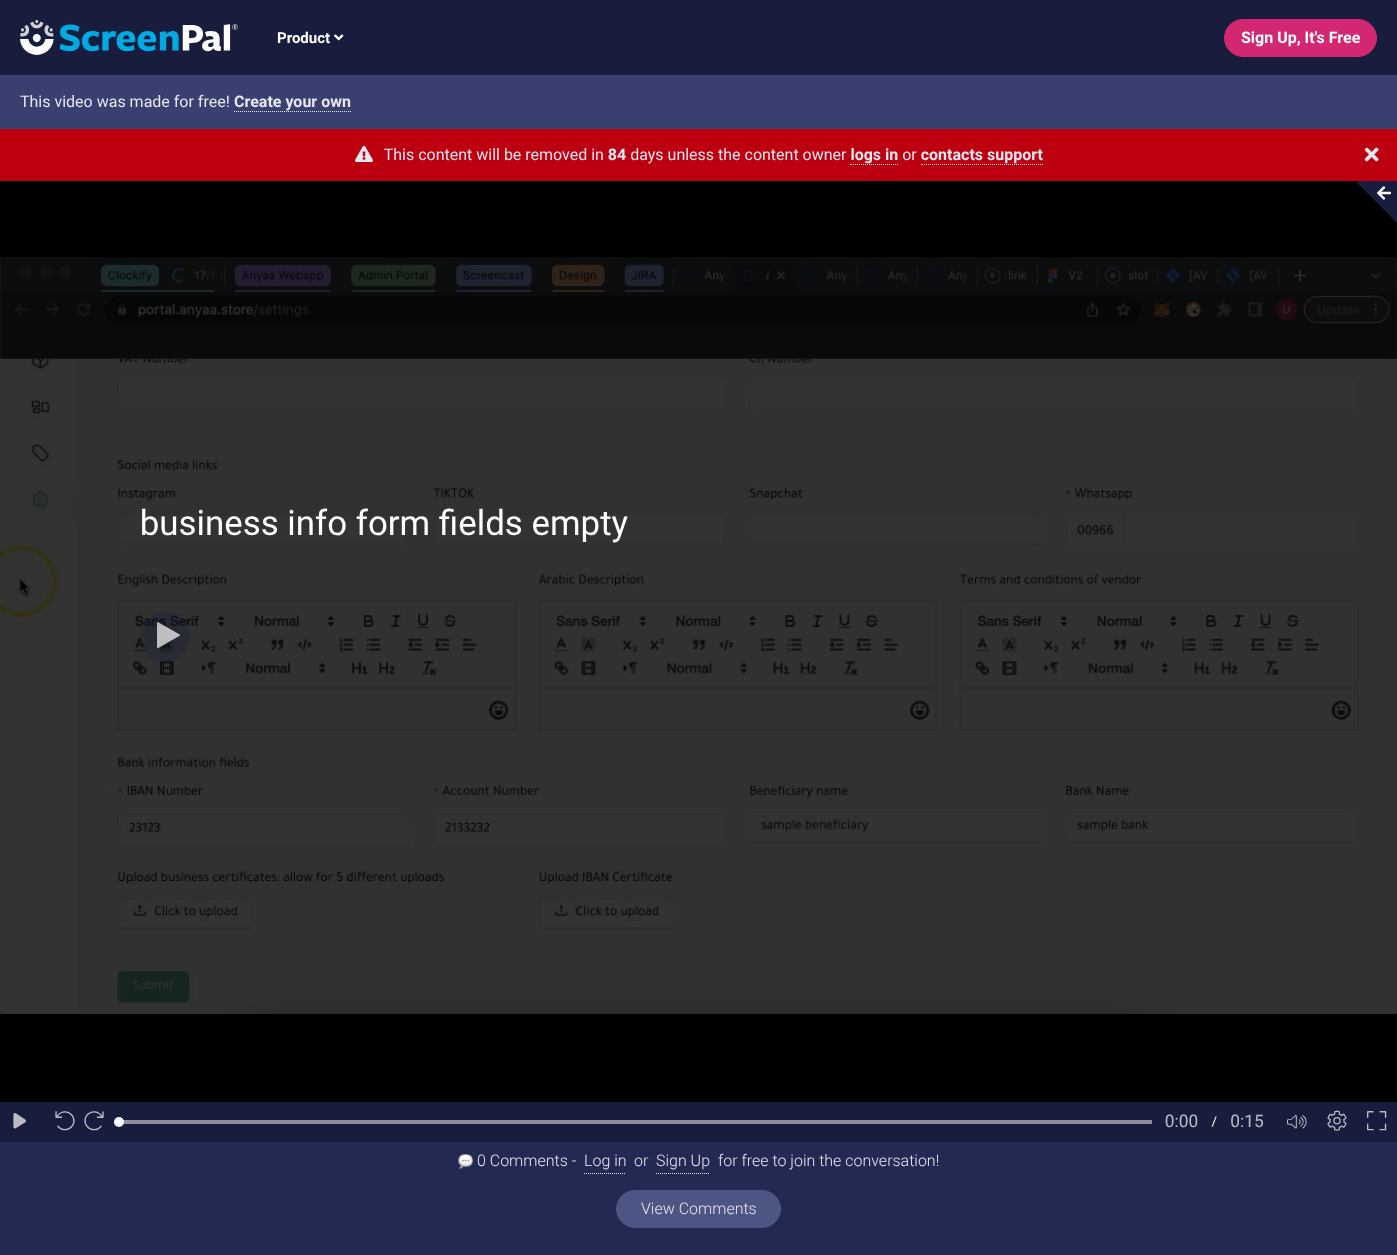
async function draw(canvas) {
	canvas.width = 1397;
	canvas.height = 1255;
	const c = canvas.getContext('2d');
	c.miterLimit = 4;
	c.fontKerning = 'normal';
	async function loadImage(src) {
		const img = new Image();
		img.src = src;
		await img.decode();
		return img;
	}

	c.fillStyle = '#232953';
	c.fillRect(0, 0, 1397, 1255);
	c.fillStyle = '#181d3d';
	c.fillRect(0, 0, 1397, 75);
	c.drawImage(await loadImage('img1.png'), 20, 20, 218, 35);
	c.font = 'bold 15px Roboto';
	c.fillStyle = '#fff';
	c.fillText('Product', 277, 43);
	c.drawImage(await loadImage('img2.png'), 334, 34, 10, 7);
	c.fillStyle = '#d32771';
	c.beginPath();
	c.roundRect(1224.5, 19.5, 152, 37, 18.5);
	c.fill();
	c.strokeStyle = '#d32771';
	c.stroke();
	c.font = 'bold 16px Roboto';
	c.fillStyle = '#fff';
	c.fillText('Sign Up, It\'s Free', 1241, 43);
	c.fillStyle = '#39406f';
	c.fillRect(0, 75, 1397, 54);
	c.font = '16px Roboto';
	c.fillStyle = '#e6e7ef';
	c.fillText('This video was made for free!', 20, 107);
	c.font = 'bold 16px Roboto';
	c.fillText('Create your own', 234, 107);
	c.beginPath();
	c.moveTo(234, 111.5);
	c.lineTo(351, 111.5);
	c.strokeStyle = '#e6e7ef';
	c.setLineDash([1, 1]);
	c.stroke();
	c.drawImage(await loadImage('img3.png'), 0, 129, 1397, 1013);
	c.fillStyle = '#181d3d';
	c.beginPath();
	c.moveTo(1397, 181);
	c.lineTo(1397, 223);
	c.lineTo(1357, 183);
	c.lineTo(1357, 181);
	c.closePath();
	c.fill();
	c.drawImage(await loadImage('img4.png'), 1377, 186, 14, 14);
	c.drawImage(await loadImage('img5.png'), 458, 1154, 15, 15);
	c.font = '300 16px Roboto';
	c.fillStyle = '#e6e7ef';
	c.fillText('0 Comments -', 477, 1166);
	c.beginPath();
	c.moveTo(584, 1173.5);
	c.lineTo(626, 1173.5);
	c.stroke();
	c.fillText('Log in', 584, 1166);
	c.fillText('or', 634, 1166);
	c.beginPath();
	c.moveTo(656, 1173.5);
	c.lineTo(710, 1173.5);
	c.stroke();
	c.fillText('Sign Up', 656, 1166);
	c.fillText('for free to join the conversation!', 718, 1166);
	c.fillStyle = '#4d5584';
	c.beginPath();
	c.roundRect(616.5, 1190.5, 164, 37, 18.5);
	c.fill();
	c.strokeStyle = '#4d5584';
	c.setLineDash([]);
	c.stroke();
	c.fillStyle = '#e6e7ef';
	c.fillText('View Comments', 641, 1214);
}

draw(document.querySelector('canvas'));
